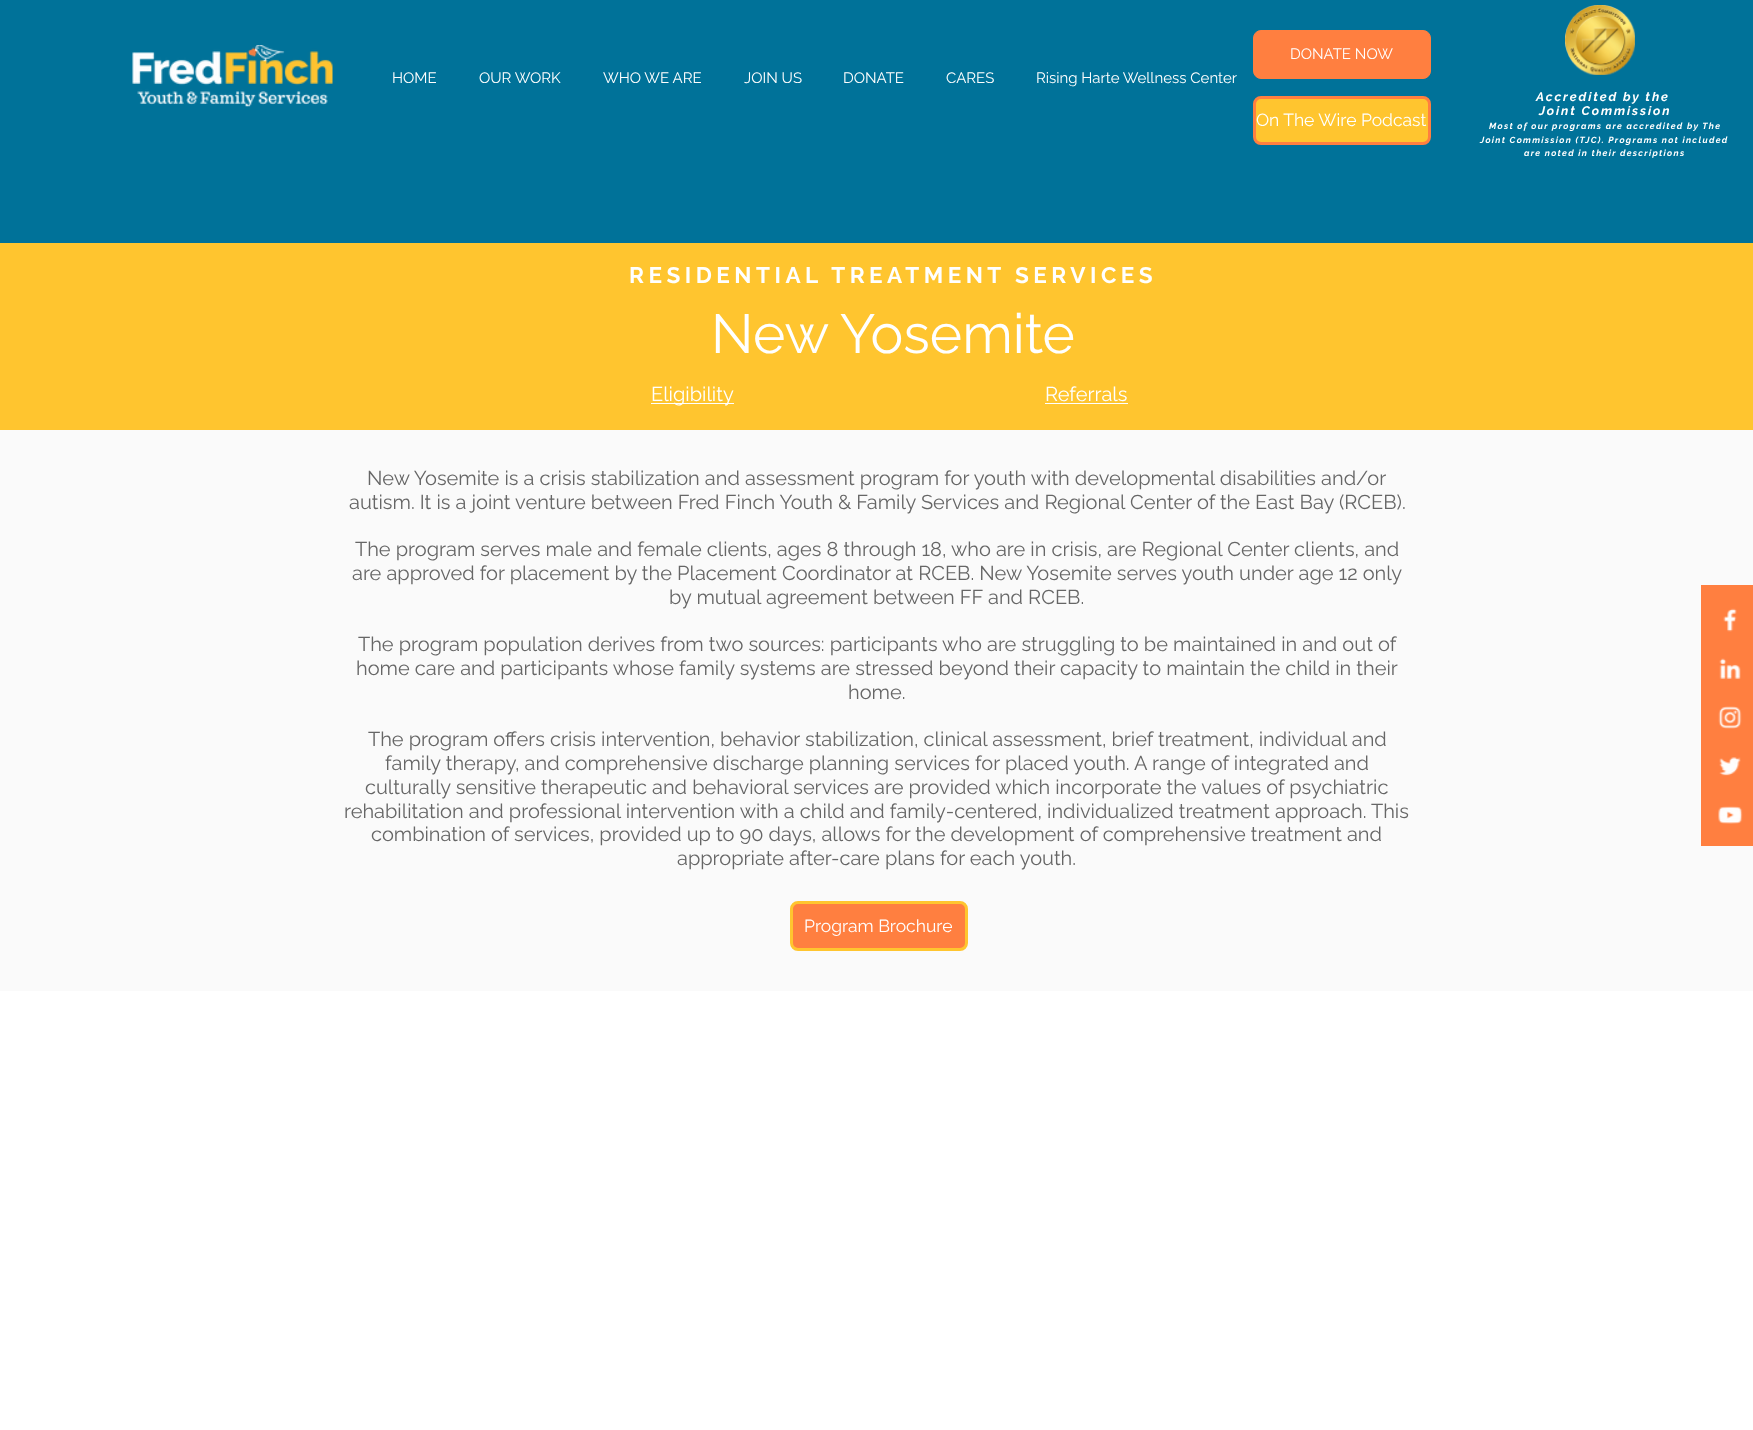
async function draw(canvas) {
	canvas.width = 1753;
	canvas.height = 1430;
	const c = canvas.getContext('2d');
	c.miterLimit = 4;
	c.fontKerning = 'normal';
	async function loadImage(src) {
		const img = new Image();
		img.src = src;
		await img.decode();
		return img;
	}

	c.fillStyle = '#fff';
	c.fillRect(0, 0, 1753, 1430);
	c.fillStyle = '#007299';
	c.fillRect(0, 0, 1753, 243);
	c.drawImage(await loadImage('img1.png'), 132, 45, 201, 62);
	c.fillStyle = '#ff7f40';
	c.beginPath();
	c.roundRect(1253.5, 30.5, 177, 48, 7.5);
	c.fill();
	c.strokeStyle = '#ff7f40';
	c.stroke();
	c.font = '15px Raleway';
	c.fillStyle = '#fff';
	c.fillText('DONATE NOW', 1290, 59);
	c.drawImage(await loadImage('img2.png'), 1565, 5, 70, 70);
	for (const [text, x, y] of [
		['HOME', 392, 83],
		['OUR WORK', 479, 83],
		['WHO WE ARE', 603, 83],
		['JOIN US', 744, 83],
		['DONATE', 843, 83],
		['CARES', 946, 83],
		['Rising Harte Wellness Center', 1036, 83],
	]) {
		c.fillText(text, x, y);
	}
	c.fillStyle = '#ffc52f';
	c.beginPath();
	c.roundRect(1254.5, 97.5, 175, 46, 6.5);
	c.fill();
	c.lineWidth = 3;
	c.stroke();
	c.font = '17.5px Raleway';
	c.fillStyle = '#fff';
	c.fillText('On The Wire Podcast', 1256, 126);
	c.letterSpacing = '1.9px';
	c.font = 'italic bold 12.5px Raleway';
	c.fillText('Accredited by the', 1536, 101);
	c.fillText('Joint Commission', 1539, 115);
	c.letterSpacing = '1.3px';
	c.font = 'italic bold 8.75px Raleway';
	for (const [text, x, y] of [
		['Most of our programs are accredited by The', 1489, 129],
		['Joint Commission (TJC). Programs not included', 1480, 143],
		['are noted in their descriptions', 1524, 156],
	]) {
		c.fillText(text, x, y);
	}
	c.fillStyle = '#ffc52f';
	c.fillRect(0, 243, 1753, 187);
	c.letterSpacing = '4.5px';
	c.font = 'bold 22.5px Raleway';
	c.fillStyle = '#fff';
	c.fillText('RESIDENTIAL TREATMENT SERVICES', 629, 283);
	c.letterSpacing = '0px';
	c.font = '55px Raleway';
	c.fillText('New Yosemite', 711, 353);
	c.fillRect(651, 403, 83, 1);
	c.font = '20px Raleway';
	c.fillText('Eligibility', 651, 401);
	c.fillText('Referrals', 1045, 401);
	c.fillRect(1045, 403, 83, 1);
	c.fillStyle = '#fafafa';
	c.fillRect(0, 430, 1753, 561);
	c.fillStyle = '#666';
	for (const [text, x, y] of [
		['New Yosemite is a crisis stabilization and assessment program for youth with developmental disabilities and/or', 367, 485],
		['autism. It is a joint venture between Fred Finch Youth & Family Services and Regional Center of the East Bay (RCEB).', 349, 509],
		['The program serves male and female clients, ages 8 through 18, who are in crisis, are Regional Center clients, and', 355, 556],
		['are approved for placement by the Placement Coordinator at RCEB. New Yosemite serves youth under age 12 only', 352, 580],
		['by mutual agreement between FF and RCEB.', 669, 604],
		['The program population derives from two sources: participants who are struggling to be maintained in and out of', 358, 651],
		['home care and participants whose family systems are stressed beyond their capacity to maintain the child in their', 356, 675],
		['home.', 848, 699],
		['The program offers crisis intervention, behavior stabilization, clinical assessment, brief treatment, individual and', 368, 746],
		['family therapy, and comprehensive discharge planning services for placed youth. A range of integrated and', 385, 770],
		['culturally sensitive therapeutic and behavioral services are provided which incorporate the values of psychiatric', 365, 794],
		['rehabilitation and professional intervention with a child and family-centered, individualized treatment approach. This', 344, 818],
		['combination of services, provided up to 90 days, allows for the development of comprehensive treatment and', 371, 841],
		['appropriate after-care plans for each youth.', 677, 865],
	]) {
		c.fillText(text, x, y);
	}
	c.fillStyle = '#ff7f40';
	c.beginPath();
	c.roundRect(791.5, 902.5, 175, 47, 6.5);
	c.fill();
	c.strokeStyle = '#ffc52f';
	c.stroke();
	c.font = '17.5px Raleway';
	c.fillStyle = '#fff';
	c.fillText('Program Brochure', 804, 932);
	c.fillStyle = '#ff7f40';
	c.fillRect(1701, 585, 52, 261);
	c.drawImage(await loadImage('img3.png'), 1723, 608, 14, 24);
	c.drawImage(await loadImage('img4.png'), 1719, 658, 22, 21);
	c.drawImage(await loadImage('img5.png'), 1718, 706, 24, 23);
	c.drawImage(await loadImage('img6.png'), 1719, 757, 22, 19);
	c.drawImage(await loadImage('img7.png'), 1718, 806, 25, 18);
}

draw(document.querySelector('canvas'));
